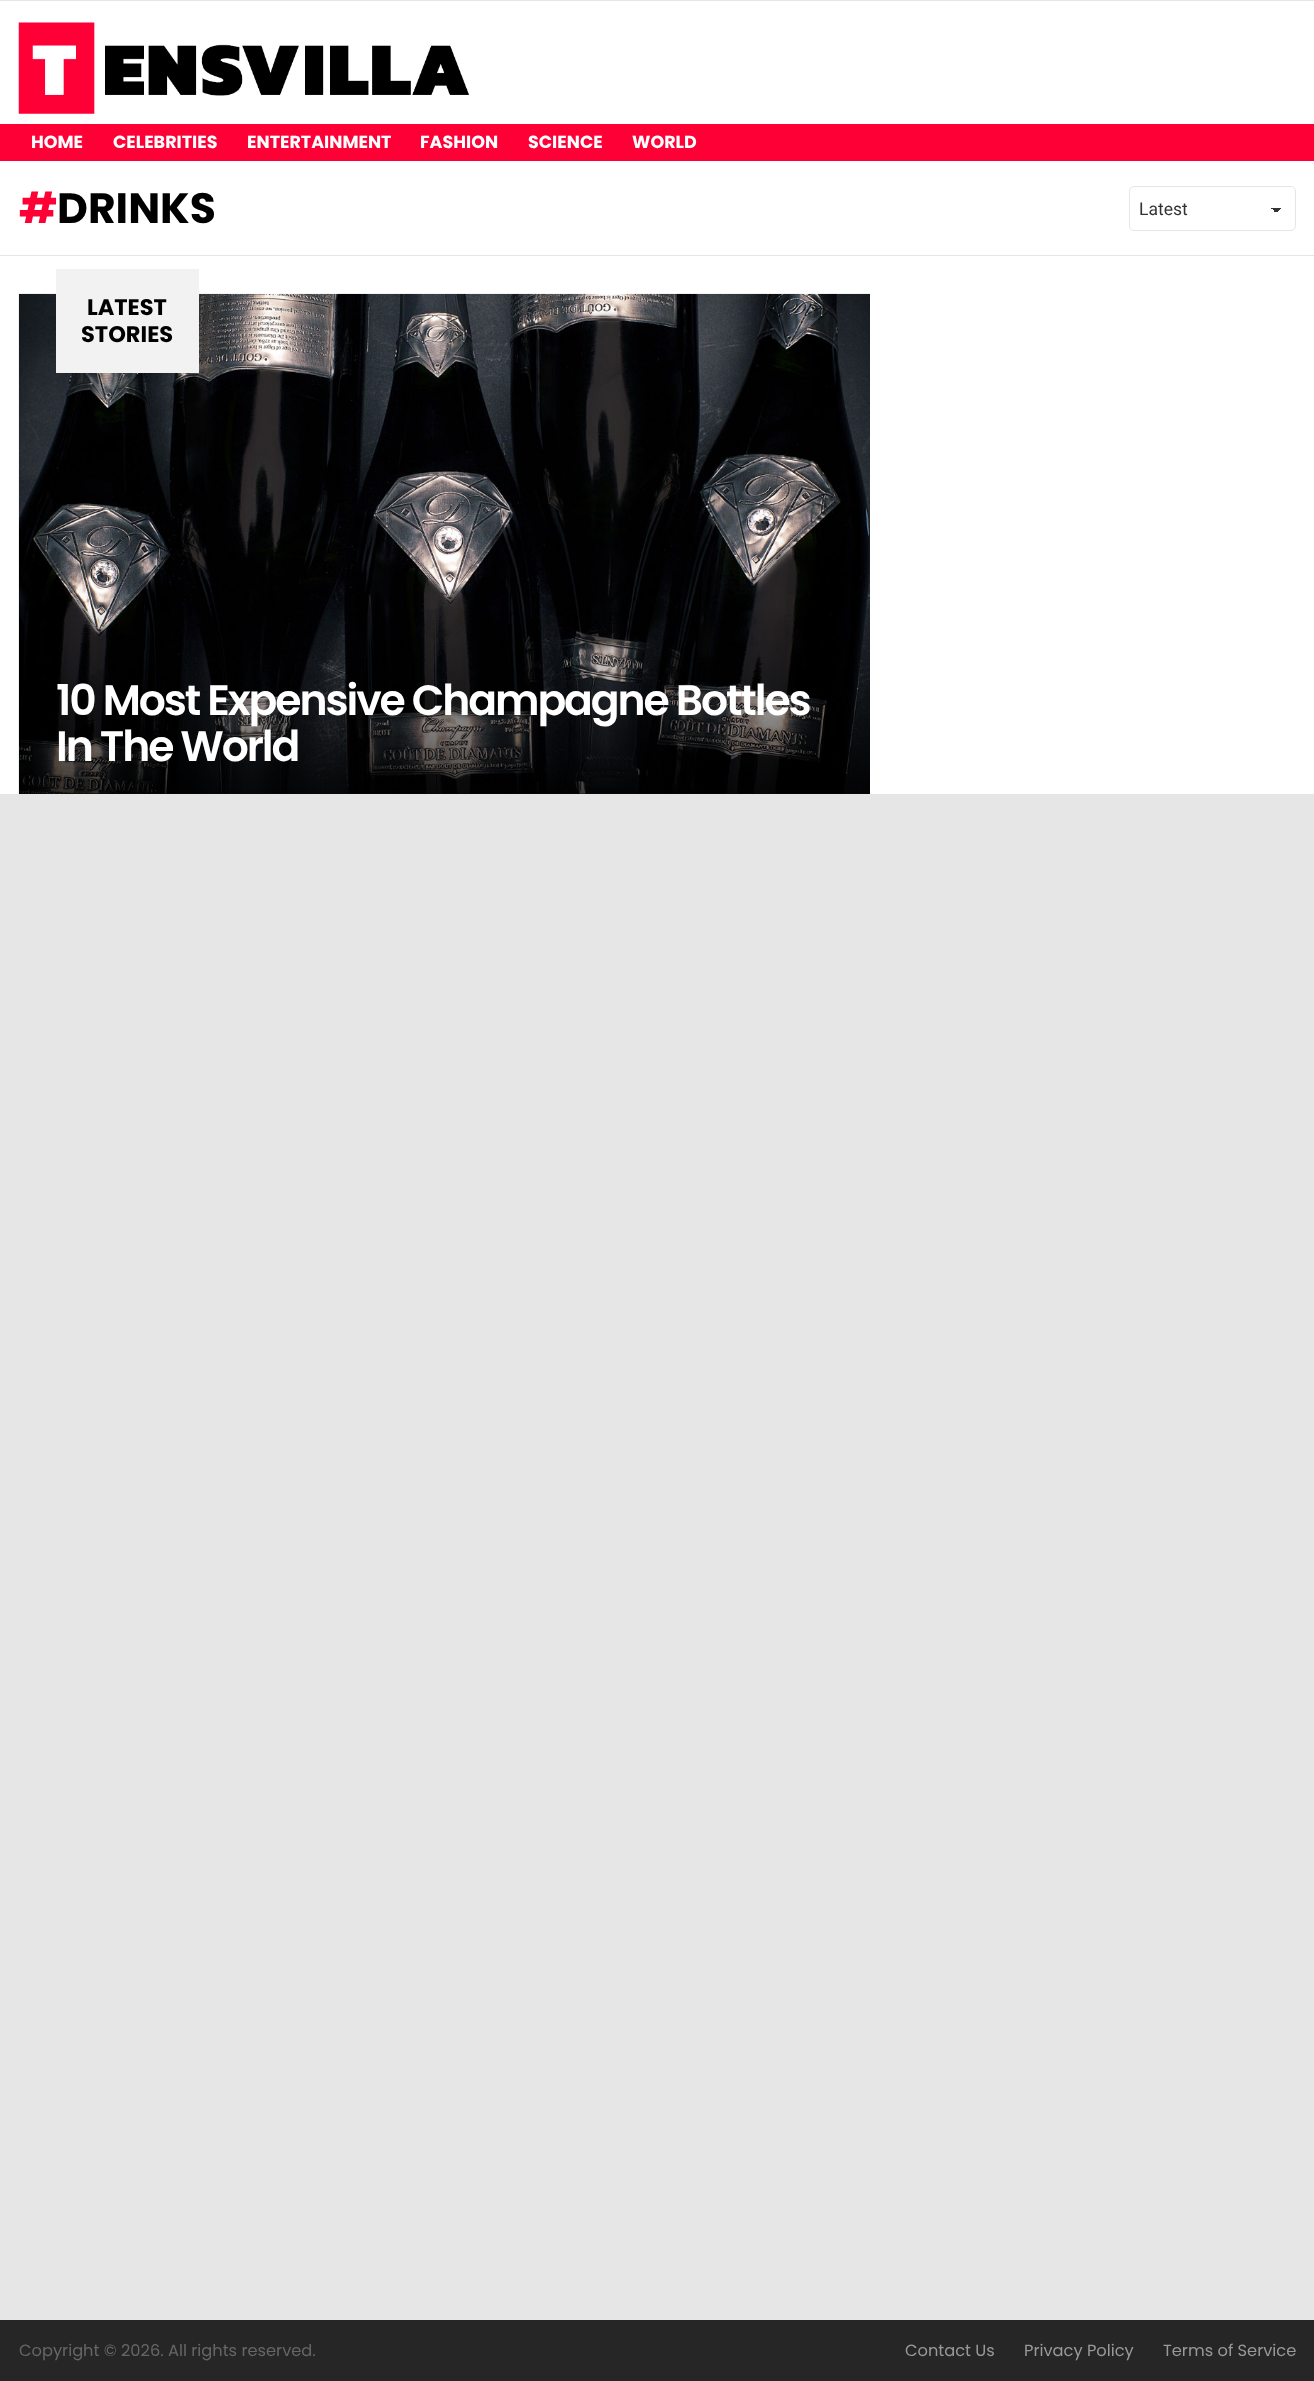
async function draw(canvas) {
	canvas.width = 1314;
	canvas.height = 2381;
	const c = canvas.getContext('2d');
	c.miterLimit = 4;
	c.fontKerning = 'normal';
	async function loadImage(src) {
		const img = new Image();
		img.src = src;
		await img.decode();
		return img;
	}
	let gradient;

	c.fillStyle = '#e6e6e6';
	c.fillRect(0, 0, 1314, 2381);
	c.fillStyle = '#fff';
	c.fillRect(0, 1, 1314, 123);
	c.drawImage(await loadImage('img1.png'), 18, 22, 452, 92);
	c.fillStyle = '#ff0036';
	c.fillRect(0, 124, 1314, 37);
	c.font = 'bold 17.5px Poppins';
	c.fillStyle = '#fff';
	for (const [text, x, y] of [
		['HOME', 31, 148],
		['CELEBRITIES', 113, 148],
		['ENTERTAINMENT', 247, 148],
		['FASHION', 420, 148],
		['SCIENCE', 528, 148],
		['WORLD', 632, 148],
	]) {
		c.fillText(text, x, y);
	}
	c.fillRect(0, 161, 1314, 94);
	c.font = 'bold 42.5px Poppins';
	c.fillStyle = '#ff0036';
	c.fillText('#', 19, 223);
	c.fillStyle = '#000';
	c.fillText('DRINKS', 57, 223);
	gradient = c.createLinearGradient(1277, 207, 1282, 213);
	gradient.addColorStop(0.5, '#333');
	gradient.addColorStop(0.5, '#fff');
	c.fillStyle = gradient;
	c.fillRect(1276, 208, 7, 4);
	gradient = c.createLinearGradient(1270, 213, 1276, 207);
	gradient.addColorStop(0.5, '#fff');
	gradient.addColorStop(0.5, '#333');
	c.fillStyle = gradient;
	c.fillRect(1270, 208, 6, 4);
	c.beginPath();
	c.roundRect(1129.5, 186.5, 166, 44, 4.5);
	c.strokeStyle = '#e6e6e6';
	c.stroke();
	c.font = '17.5px Roboto';
	c.fillStyle = '#333';
	c.fillText('Latest', 1139, 215);
	c.fillStyle = '#fff';
	c.fillRect(0, 256, 1314, 538);
	c.fillStyle = '#333';
	c.fillRect(19, 793, 851, 1);
	c.drawImage(await loadImage('img2.png'), 18, 293, 852, 501);
	c.fillStyle = '#f2f2f2';
	c.fillRect(56, 269, 143, 104);
	c.font = 'bold 22.5px Poppins';
	c.fillStyle = '#000';
	c.fillText('LATEST', 87, 315);
	c.fillText('STORIES', 81, 342);
	gradient = c.createLinearGradient(444, 602, 444, 794);
	gradient.addColorStop(0, '#00000000');
	gradient.addColorStop(1, '#000000bf');
	c.fillStyle = gradient;
	c.fillRect(19, 608, 851, 186);
	c.letterSpacing = '-2.1px';
	c.font = '600 42.5px Poppins';
	c.fillStyle = '#fff';
	c.fillText('10 Most Expensive Champagne Bottles', 56, 715);
	c.fillText('In The World', 56, 761);
	c.fillStyle = '#262626';
	c.fillRect(0, 2320, 1314, 61);
	c.letterSpacing = '0px';
	c.font = '16.25px Poppins';
	c.fillStyle = '#666';
	c.fillText('Copyright © 2026. All rights reserved.', 19, 2356);
	c.fillStyle = '#999';
	for (const [text, x, y] of [
		['Contact Us', 905, 2356],
		['Privacy Policy', 1024, 2356],
		['Terms of Service', 1163, 2356],
	]) {
		c.fillText(text, x, y);
	}
}

draw(document.querySelector('canvas'));
